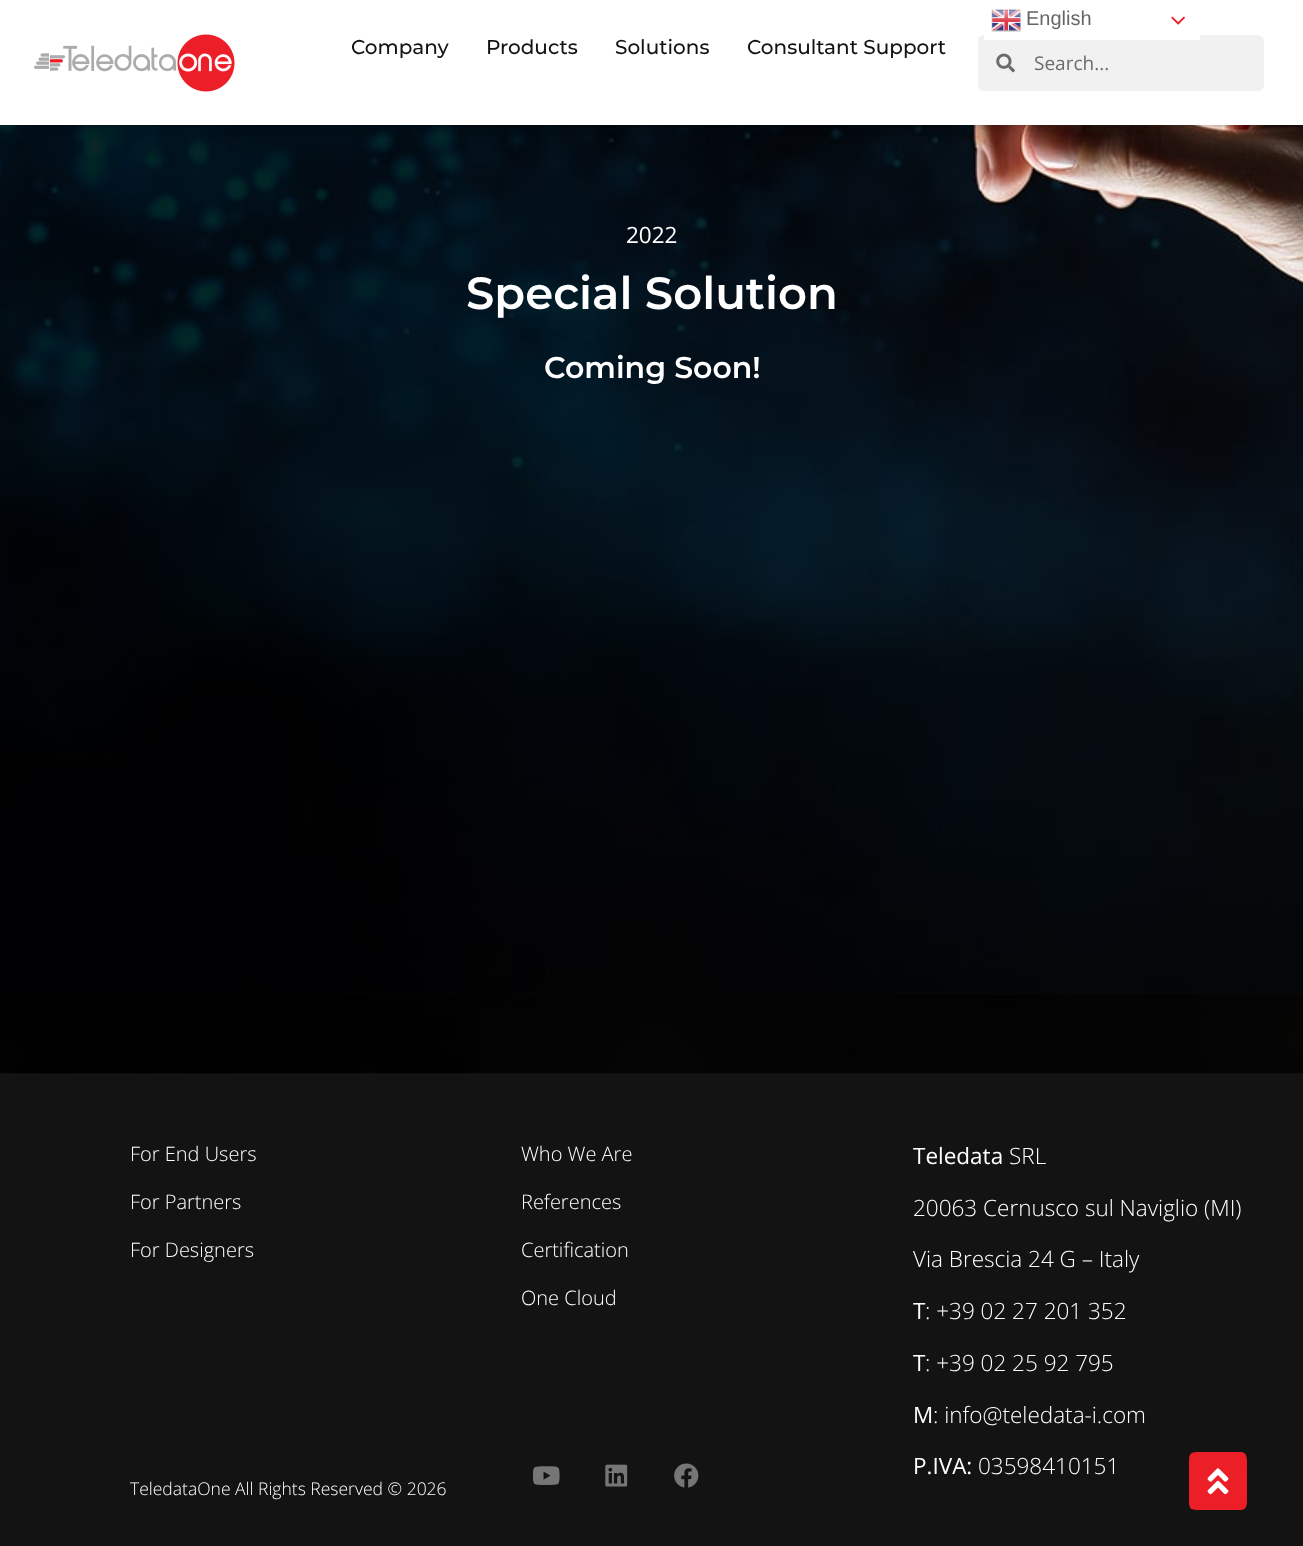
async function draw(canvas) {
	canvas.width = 1303;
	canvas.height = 1546;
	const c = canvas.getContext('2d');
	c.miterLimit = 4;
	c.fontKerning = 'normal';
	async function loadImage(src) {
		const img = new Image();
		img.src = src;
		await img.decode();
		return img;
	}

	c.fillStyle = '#131313';
	c.fillRect(0, 0, 1303, 1546);
	c.drawImage(await loadImage('img5.png'), 0, 125, 1303, 949);
	c.fillStyle = '#00000066';
	c.filter = 'blur(6px)';
	c.beginPath();
	c.rect(0, -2, 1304, 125);
	c.fill();
	c.filter = 'none';
	c.fillStyle = '#fff';
	c.fillRect(0, 0, 1303, 125);
	c.fillStyle = '#f1f1f1';
	c.beginPath();
	c.roundRect(978, 35, 286, 56, 6);
	c.fill();
	c.fillStyle = '#fff';
	c.fillRect(984, 35, 216, 5);
	c.drawImage(await loadImage('img1.png'), 991, 9, 31, 23);
	c.font = '20px Liberation Sans';
	c.fillStyle = '#666';
	c.fillText('English', 1026, 25);
	c.drawImage(await loadImage('img2.png'), 1171, 16, 14, 9);
	c.drawImage(await loadImage('img3.png'), 34, 34, 201, 58);
	c.font = '500 20px Montserrat';
	c.fillStyle = '#131313';
	for (const [text, x, y] of [
		['Company', 351, 54],
		['Products', 486, 54],
		['Solutions', 615, 54],
		['Consultant Support', 747, 54],
	]) {
		c.fillText(text, x, y);
	}
	c.drawImage(await loadImage('img4.png'), 996, 53, 19, 20);
	c.font = '19px Open Sans';
	c.fillStyle = '#6c6c6c';
	c.fillText('Search...', 1034, 70);
	c.font = '22.5px Open Sans';
	c.fillStyle = '#fff';
	c.fillText('2022', 626, 243);
	c.font = '600 45px Montserrat';
	c.fillText('Special Solution', 466, 309);
	c.font = '600 30px Montserrat';
	c.fillText('Coming Soon!', 544, 378);
	c.font = '300 20px Open Sans';
	for (const [text, x, y] of [
		['For End Users', 130, 1161],
		['For Partners', 130, 1209],
		['For Designers', 130, 1257],
	]) {
		c.fillText(text, x, y);
	}
	c.font = '300 17.5px Open Sans';
	c.fillText('TeledataOne All Rights Reserved © 2026', 130, 1495);
	c.font = '300 20px Open Sans';
	for (const [text, x, y] of [
		['Who We Are', 521, 1161],
		['References', 521, 1209],
		['Certification', 521, 1257],
		['One Cloud', 521, 1305],
	]) {
		c.fillText(text, x, y);
	}
	c.drawImage(await loadImage('img6.png'), 532, 1466, 28, 19);
	c.drawImage(await loadImage('img7.png'), 605, 1464, 23, 23);
	c.drawImage(await loadImage('img8.png'), 674, 1463, 25, 25);
	c.font = '22.5px Open Sans';
	c.fillText('Teledata', 913, 1164);
	c.font = '300 22.5px Open Sans';
	for (const [text, x, y] of [
		['SRL', 1009, 1164],
		['20063 Cernusco sul Naviglio (MI)', 913, 1216],
		['Via Brescia 24 G – Italy', 913, 1267],
	]) {
		c.fillText(text, x, y);
	}
	c.font = '22.5px Open Sans';
	c.fillText('T', 913, 1319);
	c.font = '300 22.5px Open Sans';
	c.fillText(': +39 02 27 201 352', 925, 1319);
	c.font = '22.5px Open Sans';
	c.fillText('T', 913, 1371);
	c.font = '300 22.5px Open Sans';
	c.fillText(': +39 02 25 92 795', 925, 1371);
	c.font = '22.5px Open Sans';
	c.fillText('M', 913, 1423);
	c.font = '300 22.5px Open Sans';
	c.fillText(': info@teledata-i.com', 933, 1423);
	c.font = '22.5px Open Sans';
	c.fillText('P.IVA:', 913, 1474);
	c.font = '300 22.5px Open Sans';
	c.fillText('03598410151', 978, 1474);
	c.fillStyle = '#ec1e27';
	c.beginPath();
	c.moveTo(1241, 1452);
	c.bezierCurveTo(1248, 1452, 1247, 1461, 1247, 1466);
	c.lineTo(1247, 1497);
	c.bezierCurveTo(1247, 1501, 1248, 1510, 1241, 1510);
	c.lineTo(1203, 1510);
	c.bezierCurveTo(1189, 1510, 1189, 1510, 1189, 1497);
	c.lineTo(1189, 1466);
	c.bezierCurveTo(1189, 1452, 1189, 1452, 1203, 1452);
	c.closePath();
	c.fill();
	c.drawImage(await loadImage('img9.png'), 1207, 1468, 22, 27);
}

draw(document.querySelector('canvas'));
